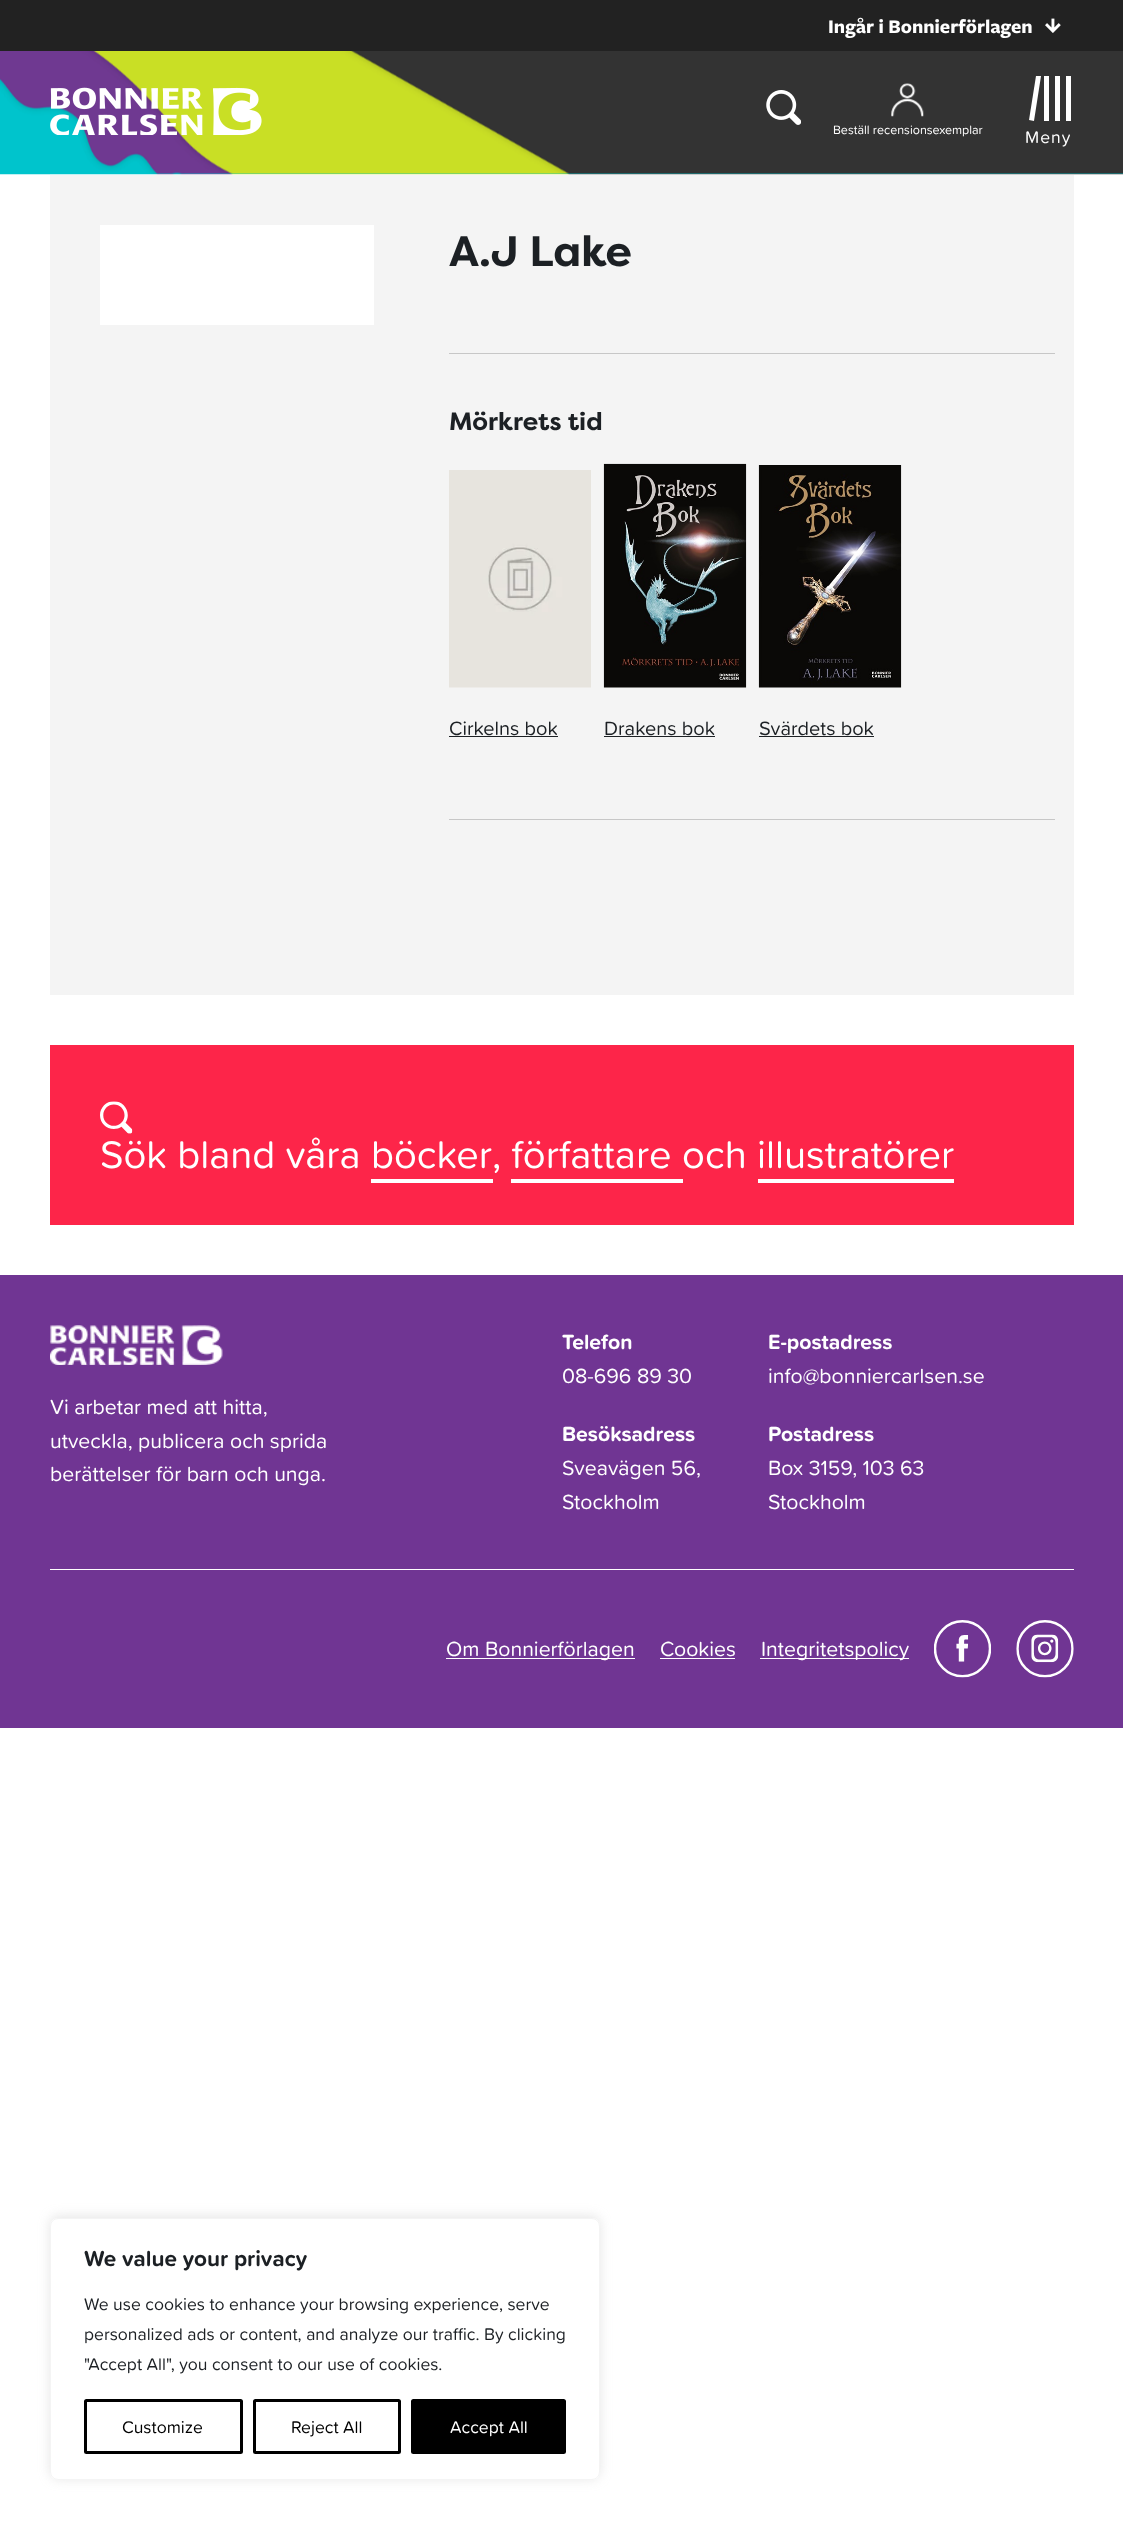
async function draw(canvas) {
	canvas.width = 1123;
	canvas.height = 2530;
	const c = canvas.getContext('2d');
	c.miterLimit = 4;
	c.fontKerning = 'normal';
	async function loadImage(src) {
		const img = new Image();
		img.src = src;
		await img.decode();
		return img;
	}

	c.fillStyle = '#fff';
	c.fillRect(0, 0, 1123, 2530);
	c.fillStyle = '#222';
	c.fillRect(0, 0, 1123, 51);
	c.font = 'bold 20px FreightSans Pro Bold';
	c.fillStyle = '#fff';
	c.fillText('Ingår i Bonnierförlagen', 828, 33);
	c.drawImage(await loadImage('img1.png'), 1045, 18, 16, 15);
	c.fillStyle = '#00c4cc';
	c.fillRect(0, 173, 1123, 1);
	c.drawImage(await loadImage('img2.png'), 0, 51, 1123, 124);
	c.drawImage(await loadImage('img3.png'), 50, 87, 212, 48);
	c.drawImage(await loadImage('img4.png'), 766, 90, 35, 35);
	c.drawImage(await loadImage('img5.png'), 891, 83, 33, 34);
	c.font = '12.5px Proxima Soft';
	c.fillStyle = '#fff';
	c.fillText('Beställ recensionsexemplar', 833, 134);
	c.beginPath();
	c.moveTo(1036, 76);
	c.lineTo(1041, 76);
	c.lineTo(1034, 121);
	c.lineTo(1029, 120);
	c.closePath();
	c.fill();
	for (const [x, y, w, h, color] of [
		[1044, 76, 5, 45, '#fff'],
		[1055, 76, 5, 45, '#fff'],
		[1066, 76, 5, 45, '#fff'],
	]) {
		c.fillStyle = color;
		c.fillRect(x, y, w, h);
	}
	c.letterSpacing = '1px';
	c.font = '17.5px Proxima Soft';
	c.fillText('Meny', 1025, 143);
	for (const [x, y, w, h, color] of [
		[50, 175, 1024, 820, '#f4f4f4'],
		[100, 225, 274, 100, '#fff'],
		[449, 353, 606, 1, '#c7c7c7'],
	]) {
		c.fillStyle = color;
		c.fillRect(x, y, w, h);
	}
	c.letterSpacing = '0px';
	c.font = 'bold 42.5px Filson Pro';
	c.fillStyle = '#1c2024';
	c.fillText('A.J Lake', 449, 266);
	c.fillStyle = '#c7c7c7';
	c.fillRect(449, 819, 606, 1);
	c.font = 'bold 25px Filson Pro';
	c.fillStyle = '#1c2024';
	c.fillText('Mörkrets tid', 449, 430);
	c.drawImage(await loadImage('img6.png'), 449, 470, 142, 218);
	c.font = '20px Proxima Soft';
	c.fillText('Cirkelns bok', 449, 735);
	c.fillRect(449, 736, 109, 1);
	c.drawImage(await loadImage('img7.png'), 603, 463, 144, 225);
	c.fillText('Drakens bok', 604, 735);
	c.fillRect(604, 736, 111, 1);
	c.drawImage(await loadImage('img8.png'), 758, 465, 144, 223);
	c.fillText('Svärdets bok', 759, 735);
	c.fillRect(759, 736, 115, 1);
	c.fillStyle = '#fd2549';
	c.fillRect(50, 1045, 1024, 180);
	c.drawImage(await loadImage('img9.png'), 100, 1101, 33, 33);
	c.font = '40px Proxima Soft';
	c.fillStyle = '#fff';
	for (const [text, x, y] of [
		['Sök bland våra böcker', 100, 1168],
		[', författare', 492, 1168],
		['och illustratörer', 682, 1168],
	]) {
		c.fillText(text, x, y);
	}
	for (const [x, y, w, h, color] of [
		[371, 1179, 122, 4, '#fff'],
		[511, 1179, 172, 4, '#fff'],
		[758, 1179, 196, 4, '#fff'],
		[0, 1275, 1123, 453, '#703593'],
	]) {
		c.fillStyle = color;
		c.fillRect(x, y, w, h);
	}
	c.drawImage(await loadImage('img10.png'), 50, 1325, 173, 40);
	c.font = '21.25px Proxima Soft';
	c.fillStyle = '#fff';
	for (const [text, x, y] of [
		['Vi arbetar med att hitta,', 50, 1414],
		['utveckla, publicera och sprida', 50, 1448],
		['berättelser för barn och unga.', 50, 1481],
	]) {
		c.fillText(text, x, y);
	}
	c.font = 'bold 21.25px Proxima Soft';
	c.fillText('Telefon', 562, 1349);
	c.font = '21.25px Proxima Soft';
	c.fillText('08-696 89 30', 562, 1383);
	c.font = 'bold 21.25px Proxima Soft';
	c.fillText('E-postadress', 768, 1349);
	c.font = '21.25px Proxima Soft';
	c.fillText('info@bonniercarlsen.se', 768, 1383);
	c.font = 'bold 21.25px Proxima Soft';
	c.fillText('Besöksadress', 562, 1441);
	c.font = '21.25px Proxima Soft';
	c.fillText('Sveavägen 56,', 562, 1475);
	c.fillText('Stockholm', 562, 1509);
	c.font = 'bold 21.25px Proxima Soft';
	c.fillText('Postadress', 768, 1441);
	c.font = '21.25px Proxima Soft';
	c.fillText('Box 3159, 103 63', 768, 1475);
	c.fillText('Stockholm', 768, 1509);
	c.fillRect(50, 1569, 1024, 1);
	c.fillRect(446, 1658, 189, 1);
	c.fillText('Om Bonnierförlagen', 446, 1656);
	c.fillText('Cookies', 660, 1656);
	c.fillRect(660, 1658, 75, 1);
	c.fillRect(760, 1658, 149, 1);
	c.fillText('Integritetspolicy', 761, 1656);
	c.drawImage(await loadImage('img11.png'), 934, 1620, 57, 58);
	c.drawImage(await loadImage('img12.png'), 1016, 1620, 58, 58);
	c.save();
	c.beginPath();
	c.moveTo(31, 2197);
	c.lineTo(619, 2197);
	c.lineTo(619, 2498);
	c.lineTo(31, 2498);
	c.closePath();
	c.moveTo(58, 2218);
	c.lineTo(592, 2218);
	c.bezierCurveTo(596.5, 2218, 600, 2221.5, 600, 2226);
	c.lineTo(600, 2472);
	c.bezierCurveTo(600, 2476.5, 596.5, 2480, 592, 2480);
	c.lineTo(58, 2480);
	c.bezierCurveTo(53.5, 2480, 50, 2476.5, 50, 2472);
	c.lineTo(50, 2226);
	c.bezierCurveTo(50, 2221.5, 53.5, 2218, 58, 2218);
	c.closePath();
	c.clip('evenodd');
	c.fillStyle = '#acabab4d';
	c.filter = 'blur(6px)';
	c.beginPath();
	c.roundRect(50, 2216, 550, 263, 8);
	c.fill();
	c.filter = 'none';
	c.restore();
	c.beginPath();
	c.roundRect(50.5, 2218.5, 549, 261, 7.5);
	c.strokeStyle = '#f4f4f4';
	c.stroke();
	c.font = 'bold 22.5px Proxima Soft';
	c.fillStyle = '#1c2024';
	c.fillText('We value your privacy', 84, 2266);
	c.font = '17.5px Proxima Soft';
	for (const [text, x, y] of [
		['We use cookies to enhance your browsing experience, serve', 84, 2310],
		['personalized ads or content, and analyze our traffic. By clicking', 84, 2340],
		['"Accept All", you consent to our use of cookies.', 84, 2370],
	]) {
		c.fillText(text, x, y);
	}
	c.beginPath();
	c.roundRect(85.5, 2400.5, 156, 52, 1);
	c.strokeStyle = '#000';
	c.lineWidth = 3;
	c.stroke();
	c.fillStyle = '#000';
	c.fillText('Customize', 122, 2433);
	c.beginPath();
	c.roundRect(254.5, 2400.5, 145, 52, 1);
	c.stroke();
	c.fillText('Reject All', 291, 2433);
	c.beginPath();
	c.roundRect(412.5, 2400.5, 152, 52, 1);
	c.fill();
	c.stroke();
	c.fillStyle = '#fff';
	c.fillText('Accept All', 450, 2433);
}

draw(document.querySelector('canvas'));
